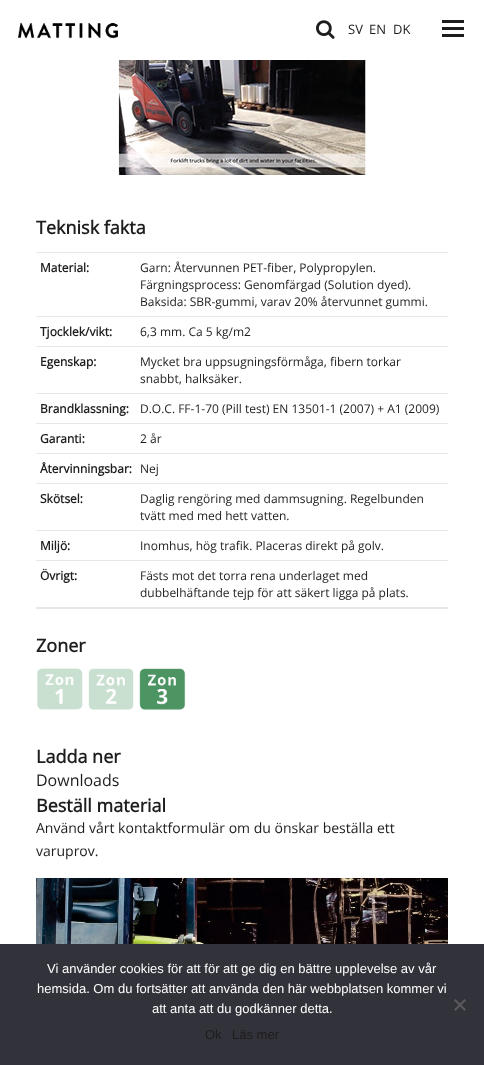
async function draw(canvas) {
	canvas.width = 484;
	canvas.height = 1065;
	const c = canvas.getContext('2d');
	c.miterLimit = 4;
	c.fontKerning = 'normal';
	async function loadImage(src) {
		const img = new Image();
		img.src = src;
		await img.decode();
		return img;
	}

	c.fillStyle = '#fff';
	c.fillRect(0, 0, 484, 1065);
	c.drawImage(await loadImage('img1.png'), 18, 22, 100, 17);
	c.drawImage(await loadImage('img2.png'), 316, 20, 19, 19);
	c.font = '13px Open Sans';
	c.fillStyle = '#1d1d1d';
	for (const [text, x, y] of [
		['SV', 348, 34],
		['EN', 369, 34],
		['DK', 393, 34],
	]) {
		c.fillText(text, x, y);
	}
	for (const [x, y, w, h, color] of [
		[442, 27, 22, 3, '#1d1d1d'],
		[442, 20, 22, 3, '#1d1d1d'],
		[442, 34, 22, 3, '#1d1d1d'],
	]) {
		c.fillStyle = color;
		c.fillRect(x, y, w, h);
	}
	c.drawImage(await loadImage('img3.png'), 118, 60, 248, 115);
	c.font = 'bold 18px Open Sans';
	c.fillText('Teknisk fakta', 36, 234);
	for (const [x, y, w, h, color] of [
		[36, 608, 412, 1, '#e7e7e7'],
		[36, 252, 412, 1, '#e7e7e7'],
		[36, 316, 412, 1, '#e7e7e7'],
	]) {
		c.fillStyle = color;
		c.fillRect(x, y, w, h);
	}
	c.font = 'bold 12px Open Sans';
	c.fillStyle = '#1d1d1d';
	c.fillText('Material:', 40, 272);
	c.font = '12px Open Sans';
	for (const [text, x, y] of [
		['Garn: Återvunnen PET-fiber, Polypropylen.', 140, 272],
		['Färgningsprocess: Genomfärgad (Solution dyed).', 140, 289],
		['Baksida: SBR-gummi, varav 20% återvunnet gummi.', 140, 306],
	]) {
		c.fillText(text, x, y);
	}
	c.fillStyle = '#e7e7e7';
	c.fillRect(36, 346, 412, 1);
	c.font = 'bold 12px Open Sans';
	c.fillStyle = '#1d1d1d';
	c.fillText('Tjocklek/vikt:', 40, 336);
	c.font = '12px Open Sans';
	c.fillText('6,3 mm. Ca 5 kg/m2', 140, 336);
	c.fillStyle = '#e7e7e7';
	c.fillRect(36, 393, 412, 1);
	c.font = 'bold 12px Open Sans';
	c.fillStyle = '#1d1d1d';
	c.fillText('Egenskap:', 40, 366);
	c.font = '12px Open Sans';
	c.fillText('Mycket bra uppsugningsförmåga, fibern torkar', 140, 366);
	c.fillText('snabbt, halksäker.', 140, 383);
	c.fillStyle = '#e7e7e7';
	c.fillRect(36, 423, 412, 1);
	c.font = 'bold 12px Open Sans';
	c.fillStyle = '#1d1d1d';
	c.fillText('Brandklassning:', 40, 413);
	c.font = '12px Open Sans';
	c.fillText('D.O.C. FF-1-70 (Pill test) EN 13501-1 (2007) + A1 (2009)', 140, 413);
	c.fillStyle = '#e7e7e7';
	c.fillRect(36, 453, 412, 1);
	c.font = 'bold 12px Open Sans';
	c.fillStyle = '#1d1d1d';
	c.fillText('Garanti:', 40, 443);
	c.font = '12px Open Sans';
	c.fillText('2 år', 140, 443);
	c.fillStyle = '#e7e7e7';
	c.fillRect(36, 483, 412, 1);
	c.font = 'bold 12px Open Sans';
	c.fillStyle = '#1d1d1d';
	c.fillText('Återvinningsbar:', 40, 473);
	c.font = '12px Open Sans';
	c.fillText('Nej', 140, 473);
	c.fillStyle = '#e7e7e7';
	c.fillRect(36, 530, 412, 1);
	c.font = 'bold 12px Open Sans';
	c.fillStyle = '#1d1d1d';
	c.fillText('Skötsel:', 40, 503);
	c.font = '12px Open Sans';
	c.fillText('Daglig rengöring med dammsugning. Regelbunden', 140, 503);
	c.fillText('tvätt med med hett vatten.', 140, 520);
	c.fillStyle = '#e7e7e7';
	c.fillRect(36, 560, 412, 1);
	c.font = 'bold 12px Open Sans';
	c.fillStyle = '#1d1d1d';
	c.fillText('Miljö:', 40, 550);
	c.font = '12px Open Sans';
	c.fillText('Inomhus, hög trafik. Placeras direkt på golv.', 140, 550);
	c.fillStyle = '#e7e7e7';
	c.fillRect(36, 607, 412, 1);
	c.font = 'bold 12px Open Sans';
	c.fillStyle = '#1d1d1d';
	c.fillText('Övrigt:', 40, 580);
	c.font = '12px Open Sans';
	c.fillText('Fästs mot det torra rena underlaget med', 140, 580);
	c.fillText('dubbelhäftande tejp för att säkert ligga på plats.', 140, 597);
	c.font = 'bold 18px Open Sans';
	c.fillText('Zoner', 36, 652);
	c.drawImage(await loadImage('img4.png'), 37, 668, 149, 42);
	c.fillText('Ladda ner', 36, 763);
	c.font = '16px Open Sans';
	c.fillText('Downloads', 36, 786);
	c.font = 'bold 18px Open Sans';
	c.fillText('Beställ material', 36, 812);
	c.font = '14px Open Sans';
	c.fillText('Använd vårt kontaktformulär om du önskar beställa ett', 36, 833);
	c.fillText('varuprov.', 36, 856);
	c.drawImage(await loadImage('img5.png'), 36, 878, 412, 66);
	c.fillStyle = '#32323a';
	c.fillRect(0, 944, 484, 121);
	c.font = '13px Liberation Sans';
	c.fillStyle = '#fff';
	for (const [text, x, y] of [
		['Vi använder cookies för att för att ge dig en bättre upplevelse av vår', 47, 973],
		['hemsida. Om du fortsätter att använda den här webbplatsen kommer vi', 37, 993],
		['att anta att du godkänner detta.', 152, 1013],
	]) {
		c.fillText(text, x, y);
	}
	c.fillStyle = '#59595d';
	c.beginPath();
	c.moveTo(464.5, 999);
	c.lineTo(466, 1000.5);
	c.lineTo(455.5, 1011);
	c.lineTo(454, 1009.5);
	c.closePath();
	c.fill();
	c.beginPath();
	c.moveTo(454, 1000.5);
	c.lineTo(455.5, 999);
	c.lineTo(466, 1009.5);
	c.lineTo(464.5, 1011);
	c.closePath();
	c.fill();
	c.fillStyle = '#1d1d1d';
	c.fillText('Ok', 205, 1039);
	c.fillText('Läs mer', 232, 1039);
}

draw(document.querySelector('canvas'));
